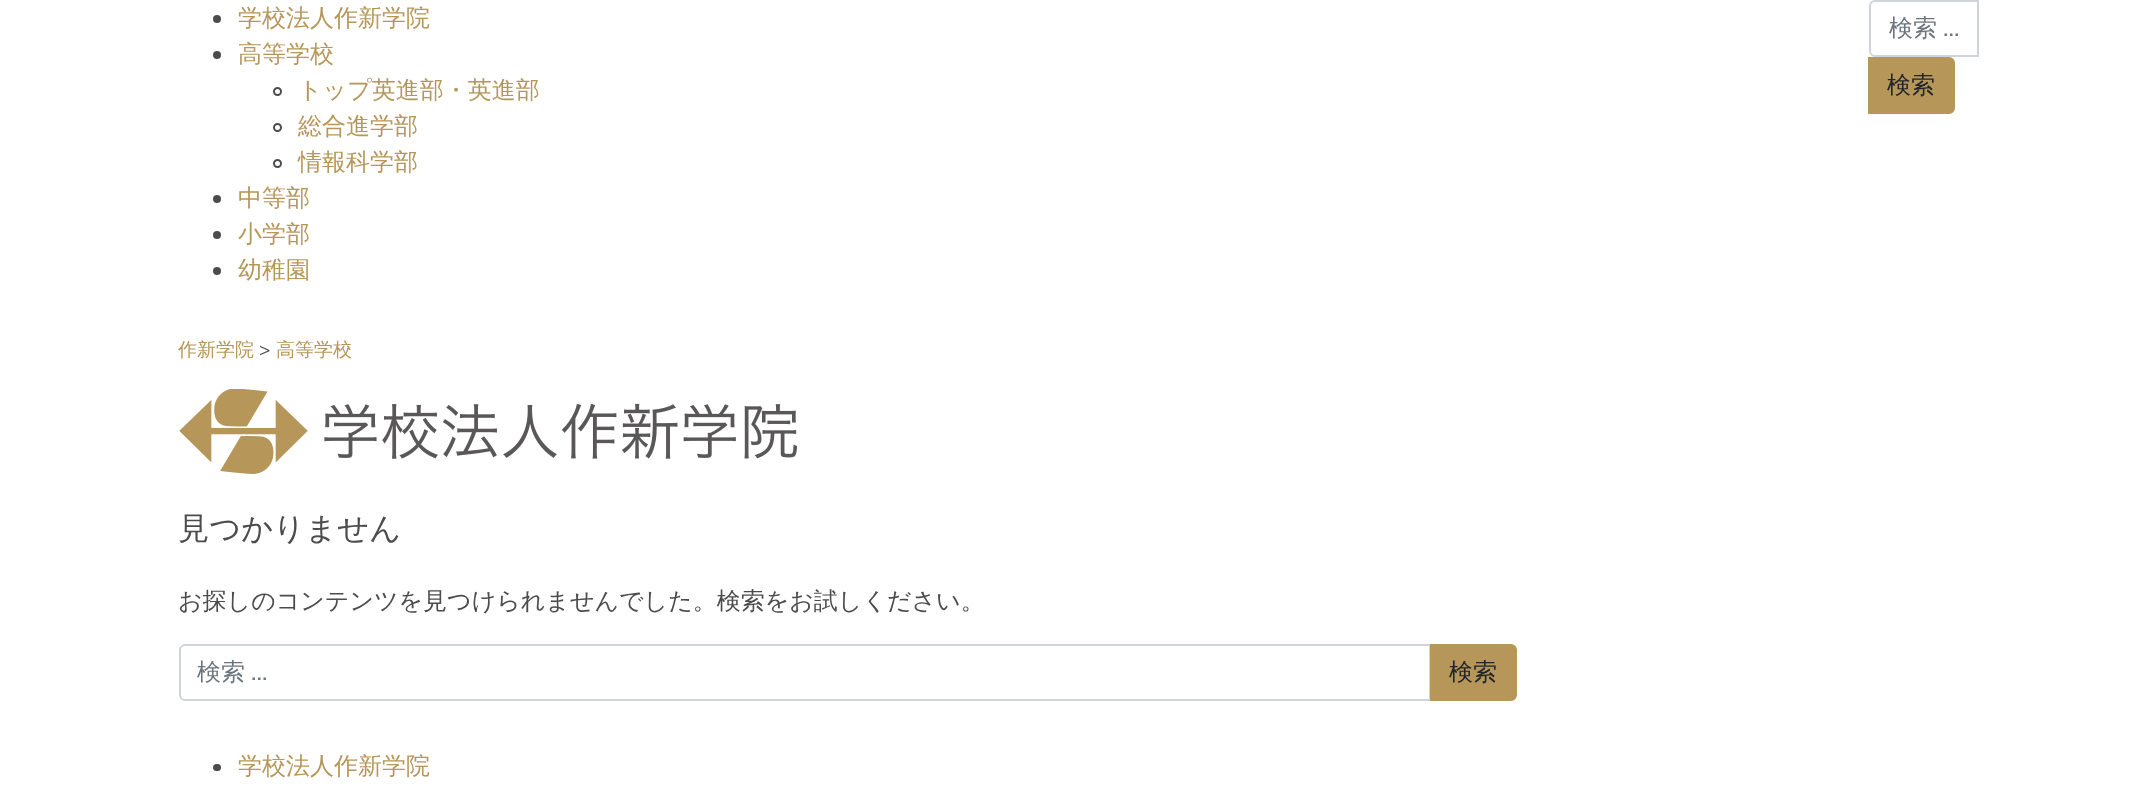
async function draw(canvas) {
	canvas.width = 2155;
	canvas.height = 788;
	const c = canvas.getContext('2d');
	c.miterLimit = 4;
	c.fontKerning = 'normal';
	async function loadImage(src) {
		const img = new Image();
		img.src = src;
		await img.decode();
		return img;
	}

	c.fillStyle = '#fff';
	c.fillRect(0, 0, 2155, 788);
	c.fillStyle = '#4c4c4c';
	c.beginPath();
	c.arc(217, 19, 4, 0, 2 * Math.PI);
	c.fill();
	c.font = '500 24px WenQuanYi Zen Hei';
	c.fillStyle = '#b69659';
	c.fillText('学校法人作新学院', 238, 26);
	c.fillStyle = '#4c4c4c';
	c.beginPath();
	c.arc(217, 55, 4, 0, 2 * Math.PI);
	c.fill();
	c.fillStyle = '#b69659';
	c.fillText('高等学校', 238, 62);
	c.beginPath();
	c.arc(277.5, 91.5, 3.5, 0, 2 * Math.PI);
	c.strokeStyle = '#4c4c4c';
	c.lineWidth = 2;
	c.stroke();
	c.fillText('トップ英進部・英進部', 298, 98);
	c.beginPath();
	c.arc(277.5, 127.5, 3.5, 0, 2 * Math.PI);
	c.stroke();
	c.fillText('総合進学部', 298, 134);
	c.beginPath();
	c.arc(277.5, 163.5, 3.5, 0, 2 * Math.PI);
	c.stroke();
	c.fillText('情報科学部', 298, 170);
	c.fillStyle = '#4c4c4c';
	c.beginPath();
	c.arc(217, 199, 4, 0, 2 * Math.PI);
	c.fill();
	c.fillStyle = '#b69659';
	c.fillText('中等部', 238, 206);
	c.fillStyle = '#4c4c4c';
	c.beginPath();
	c.arc(217, 235, 4, 0, 2 * Math.PI);
	c.fill();
	c.fillStyle = '#b69659';
	c.fillText('小学部', 238, 242);
	c.fillStyle = '#4c4c4c';
	c.beginPath();
	c.arc(217, 271, 4, 0, 2 * Math.PI);
	c.fill();
	c.fillStyle = '#b69659';
	c.fillText('幼稚園', 238, 278);
	c.beginPath();
	c.roundRect(1870, 1, 108, 55, [5, 0, 0, 5]);
	c.strokeStyle = '#ced4da';
	c.stroke();
	c.fillStyle = '#6c757d';
	c.fillText('検索', 1889, 36);
	c.font = '24px Nunito Sans';
	c.fillText('…', 1943, 36);
	c.fillStyle = '#b69659';
	c.beginPath();
	c.roundRect(1869, 58, 85, 55, [0, 5, 5, 0]);
	c.fill();
	c.strokeStyle = '#b69659';
	c.stroke();
	c.font = '500 24px WenQuanYi Zen Hei';
	c.fillStyle = '#212529';
	c.fillText('検索', 1887, 93);
	c.font = '500 19px WenQuanYi Zen Hei';
	c.fillStyle = '#b69659';
	c.fillText('作新学院', 178, 356);
	c.font = '19px Nunito Sans';
	c.fillStyle = '#4c4c4c';
	c.fillText('>', 259, 356);
	c.font = '500 19px WenQuanYi Zen Hei';
	c.fillStyle = '#b69659';
	c.fillText('高等学校', 276, 356);
	c.drawImage(await loadImage('img1.png'), 179, 389, 618, 85);
	c.font = '500 31.25px WenQuanYi Zen Hei';
	c.fillStyle = '#4c4c4c';
	c.fillText('見つかりません', 178, 539);
	c.font = '500 24px WenQuanYi Zen Hei';
	c.fillText('お探しのコンテンツを見つけられませんでした。検索をお試しください。', 178, 609);
	c.beginPath();
	c.roundRect(180, 645, 1250, 55, [5, 0, 0, 5]);
	c.strokeStyle = '#ced4da';
	c.stroke();
	c.fillStyle = '#6c757d';
	c.fillText('検索', 197, 680);
	c.font = '24px Nunito Sans';
	c.fillText('…', 251, 680);
	c.fillStyle = '#b69659';
	c.beginPath();
	c.roundRect(1431, 645, 85, 55, [0, 5, 5, 0]);
	c.fill();
	c.strokeStyle = '#b69659';
	c.stroke();
	c.font = '500 24px WenQuanYi Zen Hei';
	c.fillStyle = '#212529';
	c.fillText('検索', 1449, 680);
	c.fillStyle = '#4c4c4c';
	c.beginPath();
	c.roundRect(213, 764, 8, 7, 3.5);
	c.fill();
	c.fillStyle = '#b69659';
	c.fillText('学校法人作新学院', 238, 774);
}

draw(document.querySelector('canvas'));
